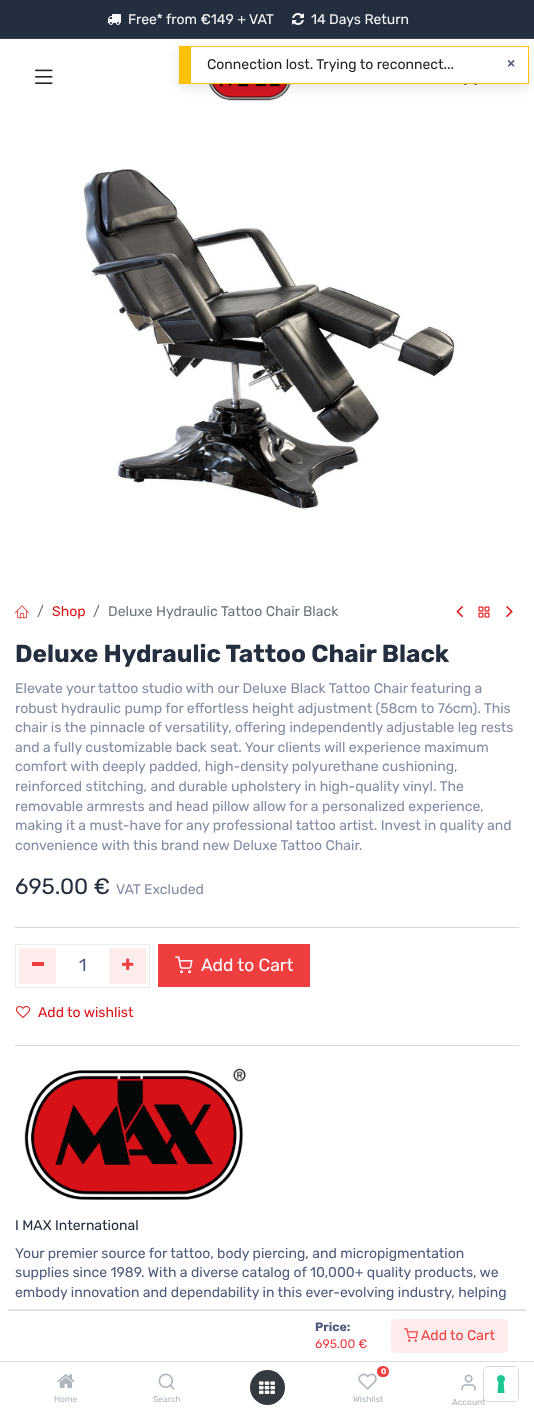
async function draw(canvas) {
	canvas.width = 534;
	canvas.height = 1417;
	const c = canvas.getContext('2d');
	c.miterLimit = 4;
	c.fontKerning = 'normal';
	async function loadImage(src) {
		const img = new Image();
		img.src = src;
		await img.decode();
		return img;
	}

	c.fillStyle = '#fff';
	c.fillRect(0, 0, 534, 1417);
	c.fillStyle = '#232f3e';
	c.fillRect(0, 0, 534, 38);
	c.fillStyle = '#3d4855';
	c.fillRect(0, 38, 534, 1);
	c.drawImage(await loadImage('img1.png'), 107, 14, 14, 11);
	c.font = '14px Rubik';
	c.fillStyle = '#f9fafe';
	c.fillText('Free* from €149 + VAT', 128, 24);
	c.drawImage(await loadImage('img2.png'), 292, 13, 12, 12);
	c.fillText('14 Days Return', 311, 24);
	c.drawImage(await loadImage('img3.png'), 35, 69, 18, 15);
	c.drawImage(await loadImage('img4.png'), 208, 84, 83, 17);
	c.drawImage(await loadImage('img5.png'), 464, 84, 13, 1);
	c.drawImage(await loadImage('img6.png'), 82, 169, 377, 340);
	c.drawImage(await loadImage('img7.png'), 15, 605, 14, 14);
	c.fillStyle = '#6c757d';
	c.fillText('/', 37, 616);
	c.fillStyle = '#dd1215';
	c.fillText('Shop', 52, 616);
	c.fillStyle = '#6c757d';
	c.fillText('/', 93, 616);
	c.fillText('Deluxe Hydraulic Tattoo Chair Black', 108, 616);
	c.drawImage(await loadImage('img8.png'), 456, 606, 7, 12);
	c.drawImage(await loadImage('img9.png'), 478, 606, 12, 12);
	c.drawImage(await loadImage('img10.png'), 506, 606, 7, 12);
	c.font = 'bold 24.5px Rubik';
	c.fillStyle = '#232f3e';
	c.fillText('Deluxe Hydraulic Tattoo Chair Black', 15, 662);
	c.font = '14px Rubik';
	c.fillStyle = '#828ca3';
	for (const [text, x, y] of [
		['Elevate your tattoo studio with our Deluxe Black Tattoo Chair featuring a', 15, 693],
		['robust hydraulic pump for effortless height adjustment (58cm to 76cm). This', 15, 713],
		['chair is the pinnacle of versatility, offering independently adjustable leg rests', 15, 732],
		['and a fully customizable back seat. Your clients will experience maximum', 15, 752],
		['comfort with deeply padded, high-density polyurethane cushioning,', 15, 771],
		['reinforced stitching, and durable upholstery in high-quality vinyl. The', 15, 791],
		['removable armrests and head pillow allow for a personalized experience,', 15, 811],
		['making it a must-have for any professional tattoo artist. Invest in quality and', 15, 830],
		['convenience with this brand new Deluxe Tattoo Chair.', 15, 850],
	]) {
		c.fillText(text, x, y);
	}
	c.font = '22.25px Rubik';
	c.fillStyle = '#232f3e';
	c.fillText('695.00 €', 15, 894);
	c.font = '14px Rubik';
	c.fillStyle = '#828ca3';
	c.fillText('VAT Excluded', 116, 894);
	c.fillStyle = '#d3d6de';
	c.fillRect(15, 927, 504, 1);
	c.strokeStyle = '#e9ecef';
	c.strokeRect(15.5, 944.5, 134, 43);
	c.fillStyle = '#fdecec';
	c.fillRect(19, 948, 37, 36);
	c.fillStyle = '#ef3e40';
	c.fillRect(32, 962, 12, 4);
	c.font = '17.5px Rubik';
	c.fillStyle = '#4d5b7c';
	c.fillText('1', 79, 971);
	c.fillStyle = '#fdecec';
	c.fillRect(109, 948, 37, 36);
	c.drawImage(await loadImage('img11.png'), 122, 958, 12, 12);
	c.fillStyle = '#ef3e40';
	c.fillRect(158, 944, 152, 43);
	c.drawImage(await loadImage('img12.png'), 175, 956, 18, 18);
	c.fillStyle = '#fff';
	c.fillText('Add to Cart', 201, 971);
	c.drawImage(await loadImage('img13.png'), 16, 1006, 14, 12);
	c.font = '14px Rubik';
	c.fillStyle = '#dd1215';
	c.fillText('Add to wishlist', 38, 1017);
	c.fillStyle = '#d3d6de';
	c.fillRect(15, 1045, 504, 1);
	c.drawImage(await loadImage('img14.png'), 24, 1068, 222, 132);
	c.fillStyle = '#232f3e';
	c.fillText('I MAX International', 15, 1230);
	c.fillStyle = '#4d5b7c';
	for (const [text, x, y] of [
		['Your premier source for tattoo, body piercing, and micropigmentation', 15, 1258],
		['supplies since 1989. With a diverse catalog of 10,000+ quality products, we', 15, 1277],
		['embody innovation and dependability in this ever-evolving industry, helping', 15, 1297],
	]) {
		c.fillText(text, x, y);
	}
	c.fillStyle = '#dee2e6';
	c.fillRect(8, 1309, 518, 2);
	c.fillRect(0, 1361, 534, 1);
	c.font = 'bold 12.25px Rubik';
	c.fillStyle = '#4d5b7c';
	c.fillText('Price:', 315, 1331);
	c.font = '12.25px Rubik';
	c.fillStyle = '#ef3e40';
	c.fillText('695.00 €', 315, 1348);
	c.fillStyle = '#fdecec';
	c.beginPath();
	c.roundRect(391, 1319, 117, 34, 5);
	c.fill();
	c.drawImage(await loadImage('img15.png'), 404, 1328, 14, 14);
	c.font = '14px Rubik';
	c.fillStyle = '#ef3e40';
	c.fillText('Add to Cart', 421, 1340);
	c.drawImage(await loadImage('img16.png'), 57, 1374, 18, 14);
	c.font = '8.5px Rubik';
	c.fillStyle = '#adb5bd';
	c.fillText('Home', 54, 1402);
	c.drawImage(await loadImage('img17.png'), 158, 1373, 17, 17);
	c.fillText('Search', 153, 1402);
	c.fillStyle = '#343a40';
	c.beginPath();
	c.arc(267.5, 1387.5, 17.5, 0, 2 * Math.PI);
	c.fill();
	c.drawImage(await loadImage('img18.png'), 259, 1381, 16, 13);
	c.fillStyle = '#ef3e40';
	c.beginPath();
	c.roundRect(377, 1366, 12, 11, 5.5);
	c.fill();
	c.font = 'bold 8px Rubik';
	c.fillStyle = '#fff';
	c.fillText('0', 381, 1374);
	c.drawImage(await loadImage('img19.png'), 358, 1373, 19, 17);
	c.font = '8.5px Rubik';
	c.fillStyle = '#adb5bd';
	c.fillText('Wishlist', 353, 1402);
	c.drawImage(await loadImage('img20.png'), 461, 1374, 15, 17);
	c.fillText('Account', 452, 1405);
	c.fillStyle = '#0000001a';
	c.filter = 'blur(6px)';
	c.beginPath();
	c.rect(179, 50, 350, 38);
	c.fill();
	c.filter = 'none';
	for (const [x, y, w, h, color] of [
		[191, 47, 337, 36, '#fff'],
		[191, 46, 338, 1, '#ffc107'],
		[528, 46, 1, 38, '#ffc107'],
		[191, 83, 338, 1, '#ffc107'],
		[179, 46, 12, 38, '#ffc107'],
	]) {
		c.fillStyle = color;
		c.fillRect(x, y, w, h);
	}
	c.font = '14px Rubik';
	c.fillStyle = '#212529';
	c.fillText('Connection lost. Trying to reconnect...', 207, 69);
	c.font = 'bold 14px Liberation Sans';
	c.fillStyle = '#4d5b7c';
	c.fillText('×', 507, 68);
	c.beginPath();
	c.roundRect(483.5, 1366.5, 35, 35, 4.5);
	c.strokeStyle = '#00000026';
	c.stroke();
	c.fillStyle = '#fff';
	c.beginPath();
	c.roundRect(484, 1367, 34, 34, 4);
	c.fill();
	c.drawImage(await loadImage('img21.png'), 497, 1375, 8, 18);
}

draw(document.querySelector('canvas'));
